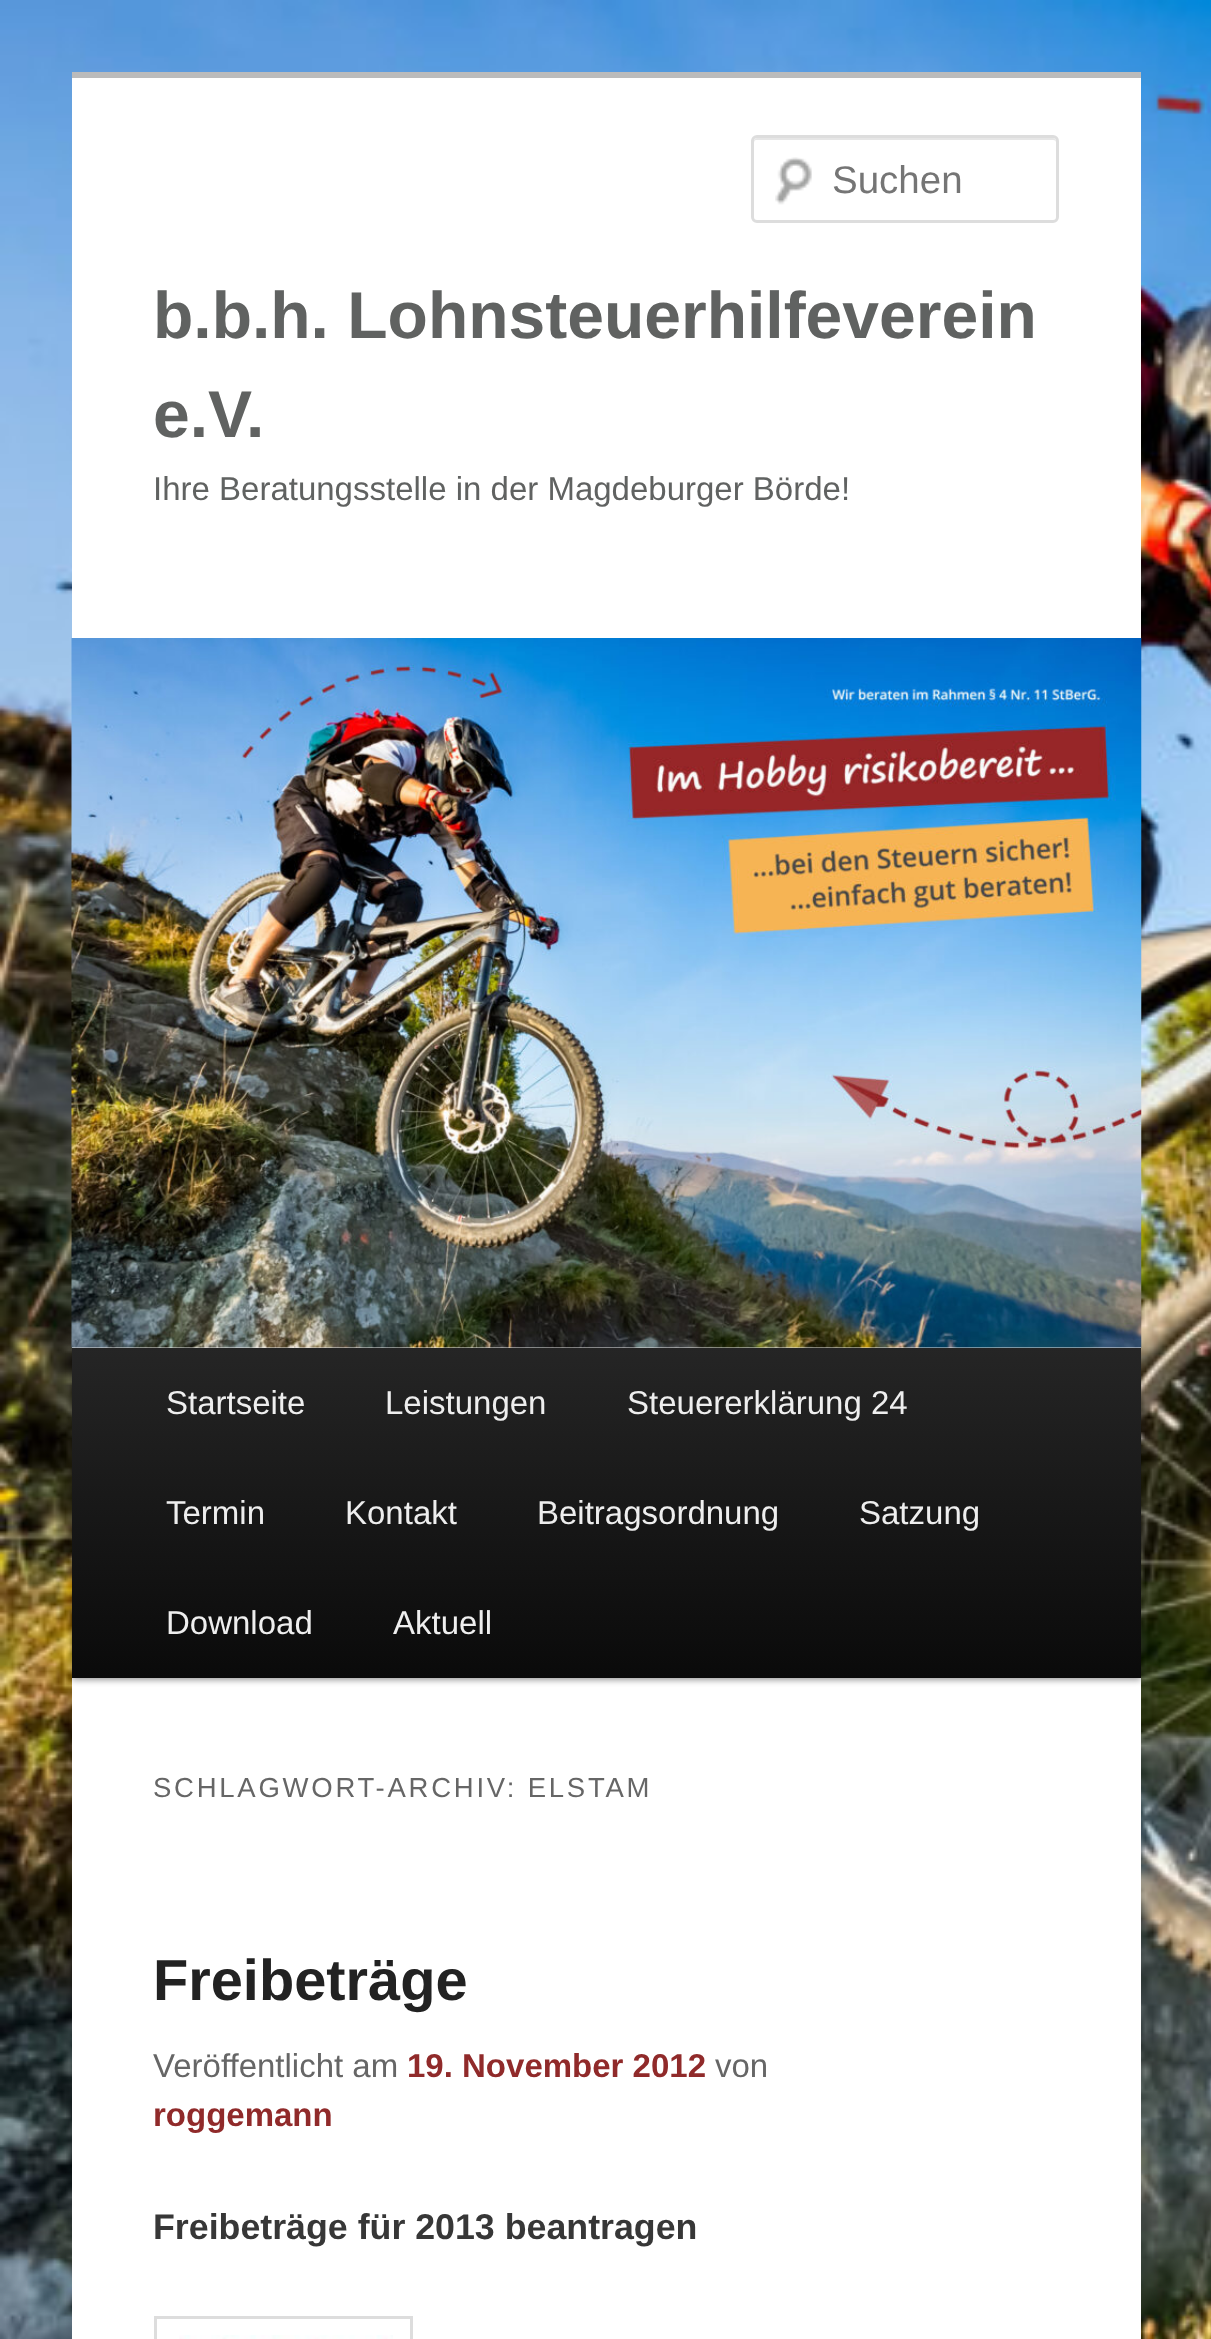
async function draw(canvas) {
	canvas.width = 1211;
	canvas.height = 2339;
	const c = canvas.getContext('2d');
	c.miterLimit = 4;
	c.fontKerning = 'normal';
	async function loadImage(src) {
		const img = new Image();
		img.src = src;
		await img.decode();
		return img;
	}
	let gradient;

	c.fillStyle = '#fff';
	c.fillRect(0, 0, 1211, 2339);
	c.drawImage(await loadImage('img1.png'), 0, 0, 1211, 2339);
	c.fillRect(72, 78, 1069, 2261);
	c.fillStyle = '#bbb';
	c.fillRect(72, 72, 1069, 6);
	c.drawImage(await loadImage('img2.png'), 775, 157, 37, 48);
	c.fillStyle = '#e6e6e6';
	c.beginPath();
	c.moveTo(756, 140);
	c.lineTo(1053, 140);
	c.bezierCurveTo(1055, 140, 1056, 141, 1056, 143);
	c.bezierCurveTo(1056, 141, 1056, 138, 1053, 138);
	c.lineTo(757, 138);
	c.bezierCurveTo(754, 138, 754, 141, 754, 143);
	c.bezierCurveTo(754, 141, 755, 140, 756, 140);
	c.closePath();
	c.fill();
	c.beginPath();
	c.roundRect(752.5, 136.5, 305, 85, 4.5);
	c.strokeStyle = '#ddd';
	c.lineWidth = 3;
	c.stroke();
	c.font = '38.5px Liberation Sans';
	c.fillStyle = '#757575';
	c.fillText('Suchen', 832, 193);
	c.font = 'bold 66px Liberation Sans';
	c.fillStyle = '#606261';
	c.fillText('b.b.h. Lohnsteuerhilfeverein', 153, 338);
	c.fillText('e.V.', 153, 437);
	c.font = '33px Liberation Sans';
	c.fillText('Ihre Beratungsstelle in der Magdeburger Börde!', 153, 500);
	c.fillStyle = '#00000066';
	c.filter = 'blur(3px)';
	c.beginPath();
	c.rect(72, 1350, 1069, 330);
	c.fill();
	c.filter = 'none';
	c.drawImage(await loadImage('img3.png'), 71, 638, 1071, 710);
	gradient = c.createLinearGradient(606, 1348, 606, 1678);
	gradient.addColorStop(0, '#252525');
	gradient.addColorStop(1, '#0a0a0a');
	c.fillStyle = gradient;
	c.fillRect(72, 1348, 1069, 330);
	c.fillStyle = '#eee';
	for (const [text, x, y] of [
		['Startseite', 166, 1414],
		['Leistungen', 385, 1414],
		['Steuererklärung 24', 627, 1414],
		['Termin', 166, 1524],
		['Kontakt', 345, 1524],
		['Beitragsordnung', 537, 1524],
		['Satzung', 859, 1524],
		['Download', 166, 1634],
		['Aktuell', 393, 1634],
	]) {
		c.fillText(text, x, y);
	}
	c.letterSpacing = '2.75px';
	c.font = '27.5px Liberation Sans';
	c.fillStyle = '#666';
	c.fillText('SCHLAGWORT-ARCHIV: ELSTAM', 153, 1797);
	c.letterSpacing = '0px';
	c.font = 'bold 57.75px Liberation Sans';
	c.fillStyle = '#222';
	c.fillText('Freibeträge', 153, 2000);
	c.font = '33px Liberation Sans';
	c.fillStyle = '#666';
	c.fillText('Veröffentlicht am', 153, 2077);
	c.font = 'bold 33px Liberation Sans';
	c.fillStyle = '#902a2a';
	c.fillText('19. November 2012', 407, 2077);
	c.font = '33px Liberation Sans';
	c.fillStyle = '#666';
	c.fillText('von', 715, 2077);
	c.font = 'bold 33px Liberation Sans';
	c.fillStyle = '#902a2a';
	c.fillText('roggemann', 153, 2126);
	c.font = 'bold 35.75px Liberation Sans';
	c.fillStyle = '#373737';
	c.fillText('Freibeträge für 2013 beantragen', 153, 2239);
	c.strokeRect(155.5, 2317.5, 256, 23);
	c.drawImage(await loadImage('img4.png'), 179, 2335, 214, 4);
}

draw(document.querySelector('canvas'));
